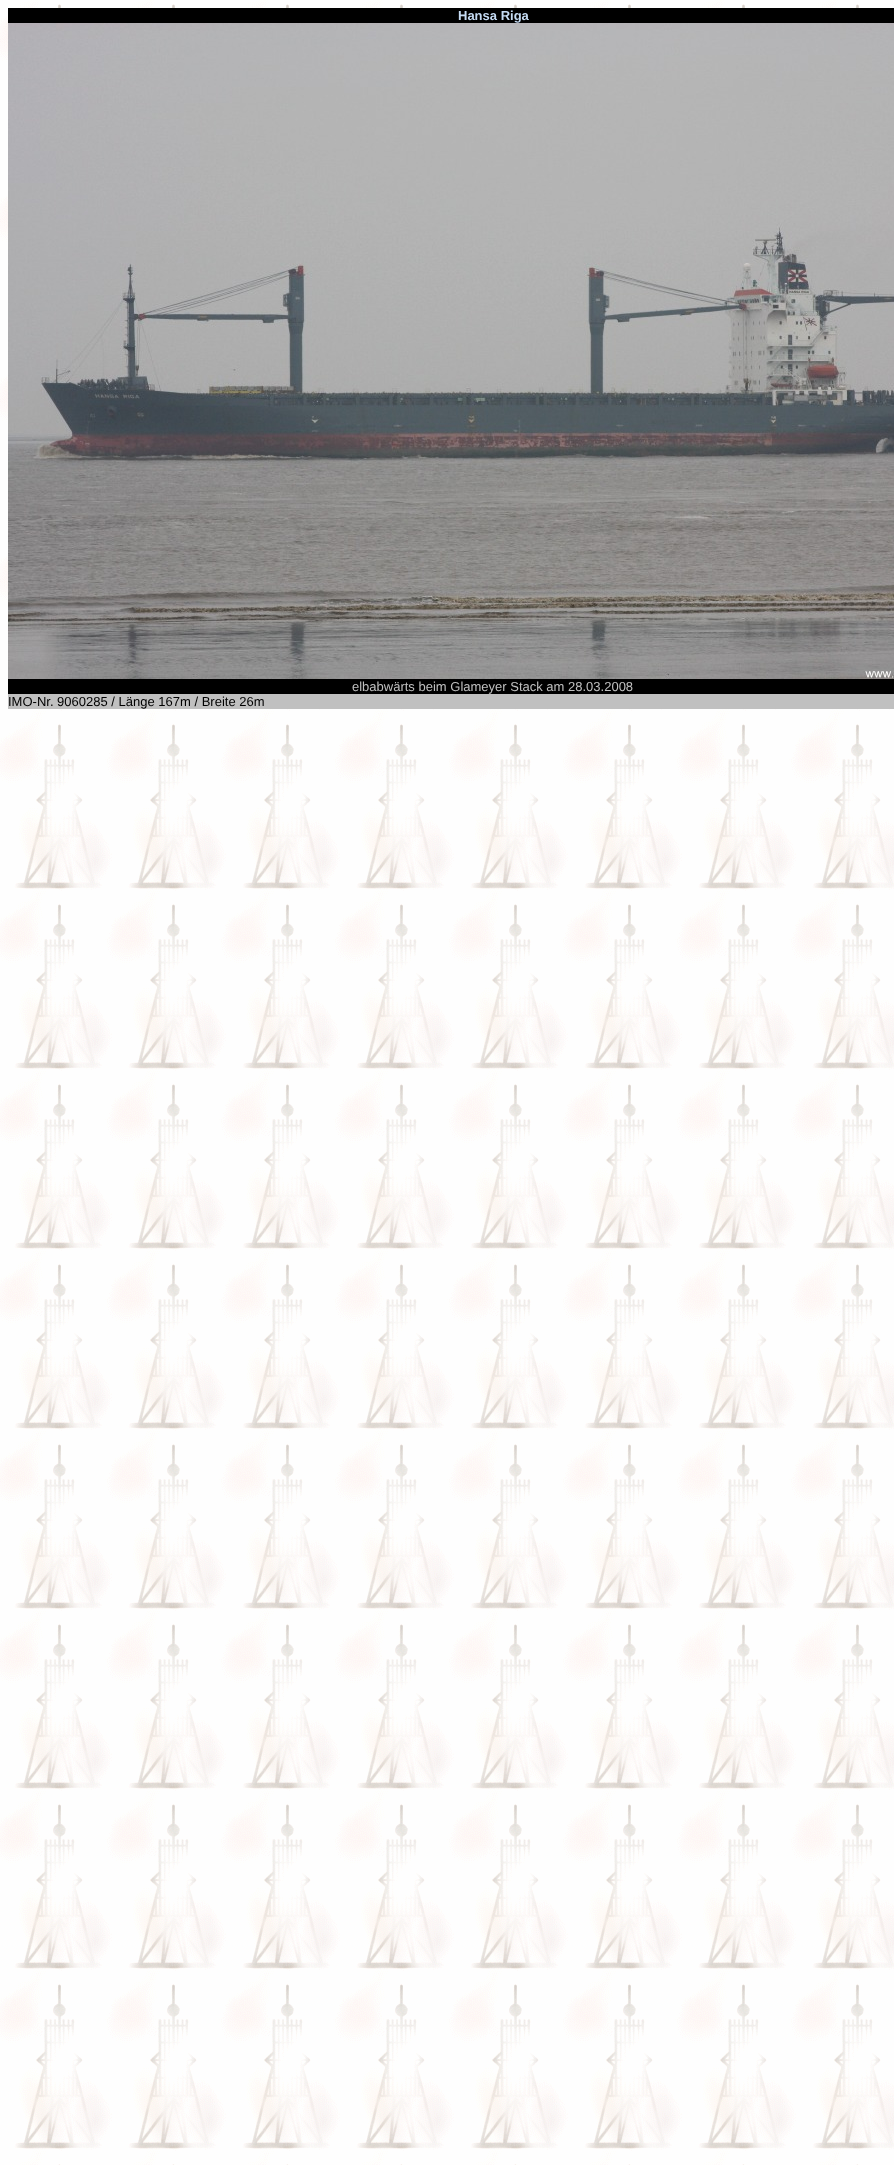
async function draw(canvas) {
	canvas.width = 894;
	canvas.height = 2165;
	const c = canvas.getContext('2d');
	c.miterLimit = 4;
	c.fontKerning = 'normal';
	async function loadImage(src) {
		const img = new Image();
		img.src = src;
		await img.decode();
		return img;
	}

	c.fillStyle = '#fff';
	c.fillRect(0, 0, 894, 2165);
	c.drawImage(await loadImage('img1.png'), 0, 0, 894, 2165);
	c.fillStyle = '#000';
	c.fillRect(8, 8, 886, 15);
	c.font = 'bold 13px Liberation Sans';
	c.fillStyle = '#c5dbf3';
	c.fillText('Hansa Riga', 458, 20);
	c.drawImage(await loadImage('img2.png'), 8, 23, 886, 656);
	c.fillStyle = '#000';
	c.fillRect(8, 679, 886, 15);
	c.font = '13px Liberation Sans';
	c.fillStyle = '#c0c0c0';
	c.fillText('elbabwärts beim Glameyer Stack am 28.03.2008', 352, 691);
	c.fillRect(8, 694, 886, 15);
	c.fillStyle = '#000';
	c.fillText('IMO-Nr. 9060285 / Länge 167m / Breite 26m', 8, 706);
}

draw(document.querySelector('canvas'));
